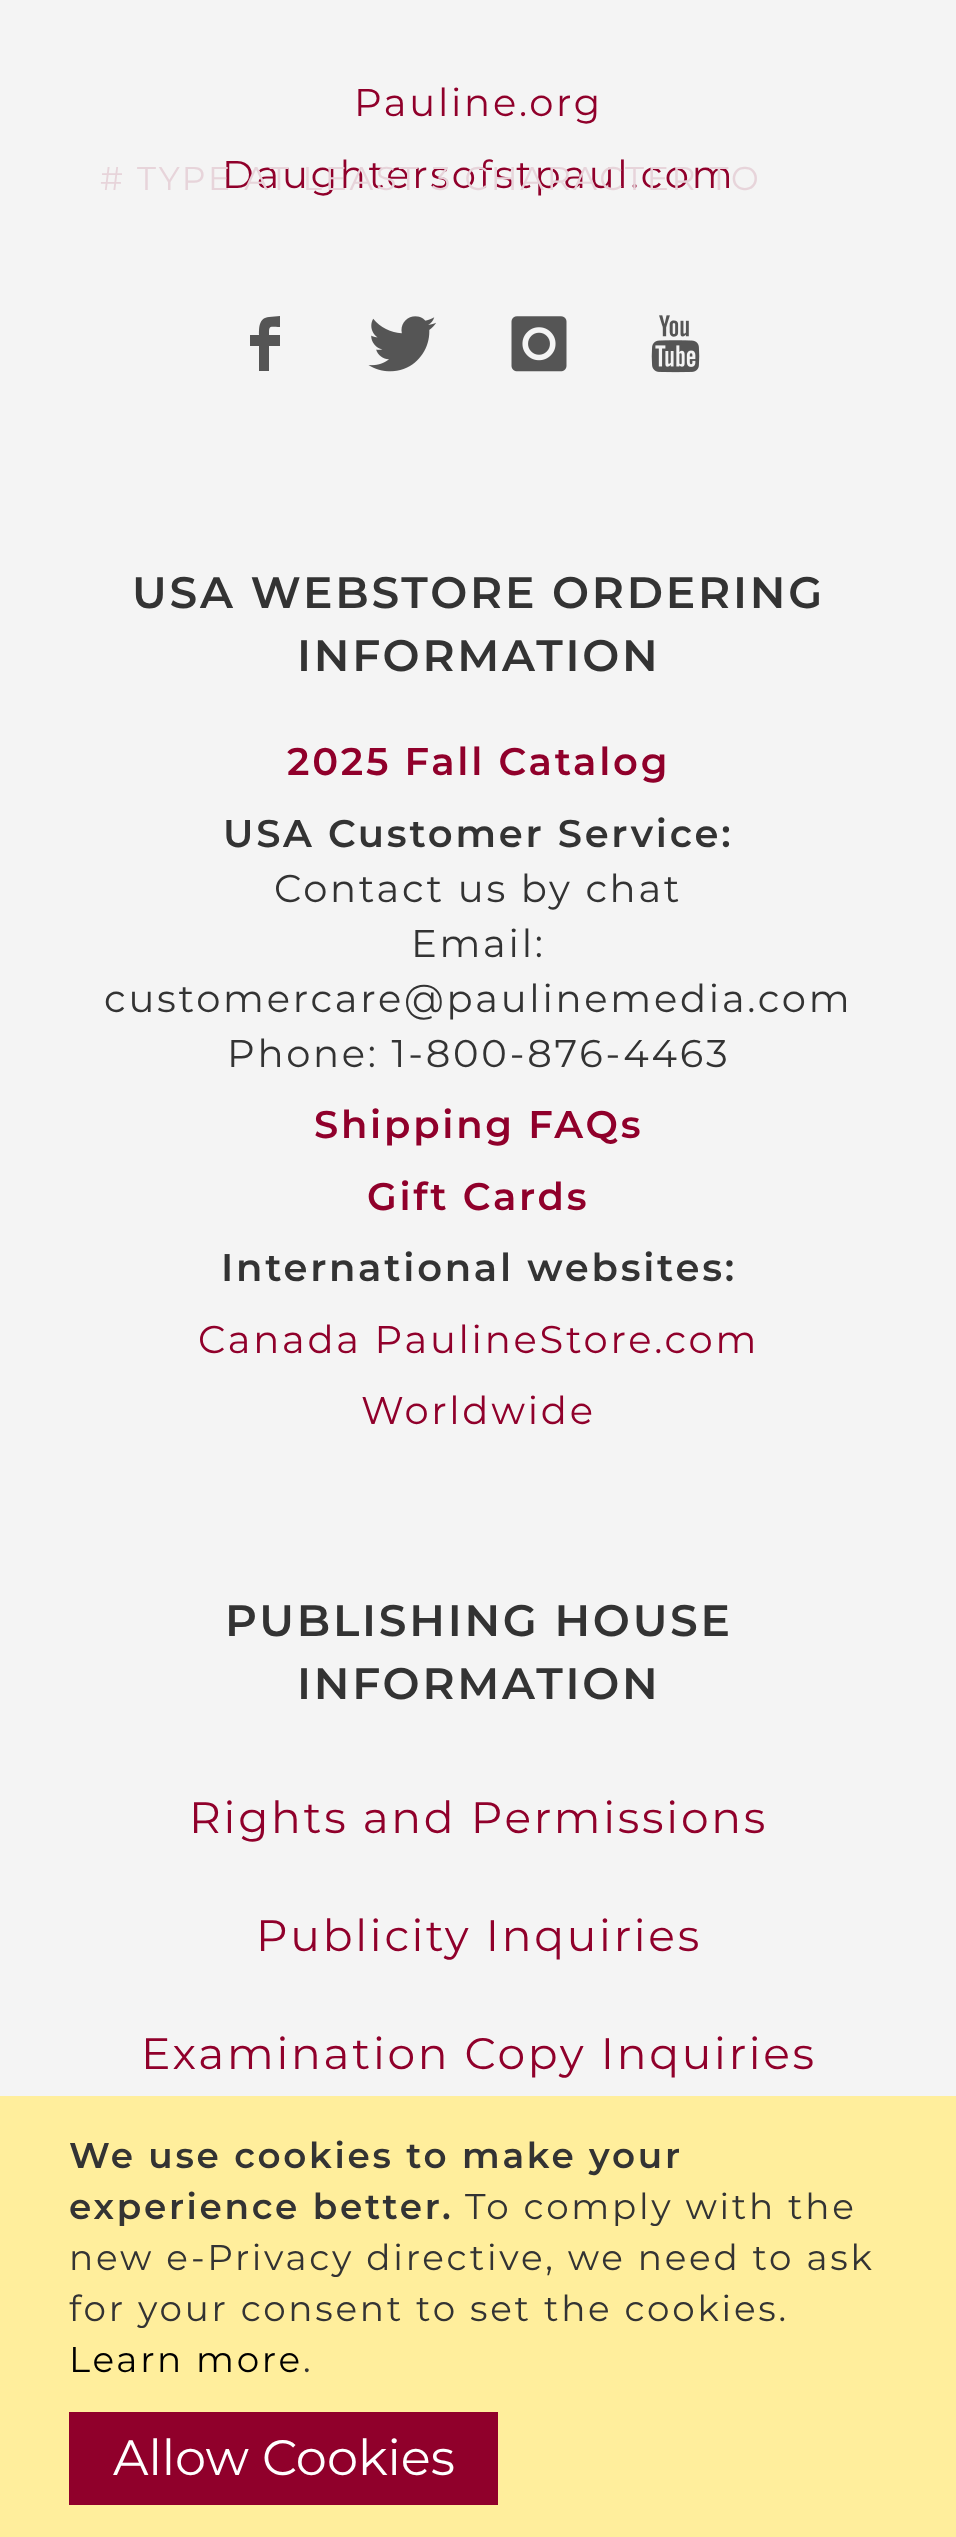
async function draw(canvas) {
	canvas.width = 956;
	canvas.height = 2537;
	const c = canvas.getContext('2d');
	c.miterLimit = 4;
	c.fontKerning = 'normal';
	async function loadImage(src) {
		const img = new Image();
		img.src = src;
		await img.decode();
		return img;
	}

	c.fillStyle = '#f4f4f4';
	c.fillRect(0, 0, 956, 2537);
	c.letterSpacing = '2.75px';
	c.font = '38.5px Montserrat';
	c.fillStyle = '#90002b';
	c.fillText('Pauline.org', 354, 116);
	c.fillText('Daughtersofstpaul.com', 222, 188);
	c.fillStyle = '#555';
	c.beginPath();
	c.moveTo(250, 346);
	c.lineTo(259, 346);
	c.lineTo(259, 371);
	c.lineTo(269, 371);
	c.lineTo(269, 346);
	c.lineTo(280, 346);
	c.lineTo(280, 335);
	c.lineTo(269, 335);
	c.bezierCurveTo(269, 325, 269, 327, 280, 327);
	c.lineTo(280, 316);
	c.lineTo(269, 317);
	c.bezierCurveTo(259, 318, 259, 327, 259, 335);
	c.lineTo(250, 335);
	c.closePath();
	c.fill();
	c.drawImage(await loadImage('img1.png'), 368, 316, 68, 56);
	c.drawImage(await loadImage('img2.png'), 511, 316, 56, 56);
	c.drawImage(await loadImage('img3.png'), 651, 315, 49, 58);
	c.font = '600 44px Montserrat';
	c.fillStyle = '#333';
	c.fillText('USA WEBSTORE ORDERING', 132, 608);
	c.fillText('INFORMATION', 297, 671);
	c.font = '600 38.5px Montserrat';
	c.fillStyle = '#90002b';
	c.fillText('2025 Fall Catalog', 287, 775);
	c.fillStyle = '#333';
	c.fillText('USA Customer Service:', 223, 847);
	c.font = '38.5px Montserrat';
	for (const [text, x, y] of [
		['Contact us by chat', 274, 902],
		['Email:', 411, 957],
		['customercare@paulinemedia.com', 104, 1012],
		['Phone: 1-800-876-4463', 227, 1067],
	]) {
		c.fillText(text, x, y);
	}
	c.font = '600 38.5px Montserrat';
	c.fillStyle = '#90002b';
	c.fillText('Shipping FAQs', 314, 1138);
	c.fillText('Gift Cards', 367, 1210);
	c.fillStyle = '#333';
	c.fillText('International websites:', 221, 1281);
	c.font = '38.5px Montserrat';
	c.fillStyle = '#90002b';
	c.fillText('Canada PaulineStore.com', 198, 1353);
	c.fillText('Worldwide', 361, 1424);
	c.font = '600 44px Montserrat';
	c.fillStyle = '#333';
	c.fillText('PUBLISHING HOUSE', 225, 1636);
	c.fillText('INFORMATION', 297, 1699);
	c.font = '44px Montserrat';
	c.fillStyle = '#90002b';
	for (const [text, x, y] of [
		['Rights and Permissions', 189, 1833],
		['Publicity Inquiries', 256, 1951],
		['Examination Copy Inquiries', 141, 2069],
	]) {
		c.fillText(text, x, y);
	}
	c.font = '33px Montserrat';
	c.fillStyle = '#e7d4da';
	c.fillText('# TYPE AT LEAST 3 CHARACTER TO', 100, 190);
	c.fillStyle = '#ffee9c';
	c.fillRect(0, 2096, 956, 441);
	c.font = '600 35.75px Montserrat';
	c.fillStyle = '#333';
	c.fillText('We use cookies to make your', 69, 2168);
	c.fillText('experience better.', 69, 2219);
	c.font = '35.75px Montserrat';
	for (const [text, x, y] of [
		['To comply with the', 465, 2219],
		['new e-Privacy directive, we need to ask', 69, 2270],
		['for your consent to set the cookies.', 69, 2321],
	]) {
		c.fillText(text, x, y);
	}
	c.fillStyle = '#000';
	c.fillText('Learn more', 69, 2372);
	c.fillStyle = '#333';
	c.fillText('.', 303, 2372);
	c.fillStyle = '#90002b';
	c.fillRect(69, 2412, 429, 93);
	c.letterSpacing = '0px';
	c.font = '49.5px Montserrat';
	c.fillStyle = '#fff';
	c.fillText('Allow Cookies', 113, 2475);
}

draw(document.querySelector('canvas'));
